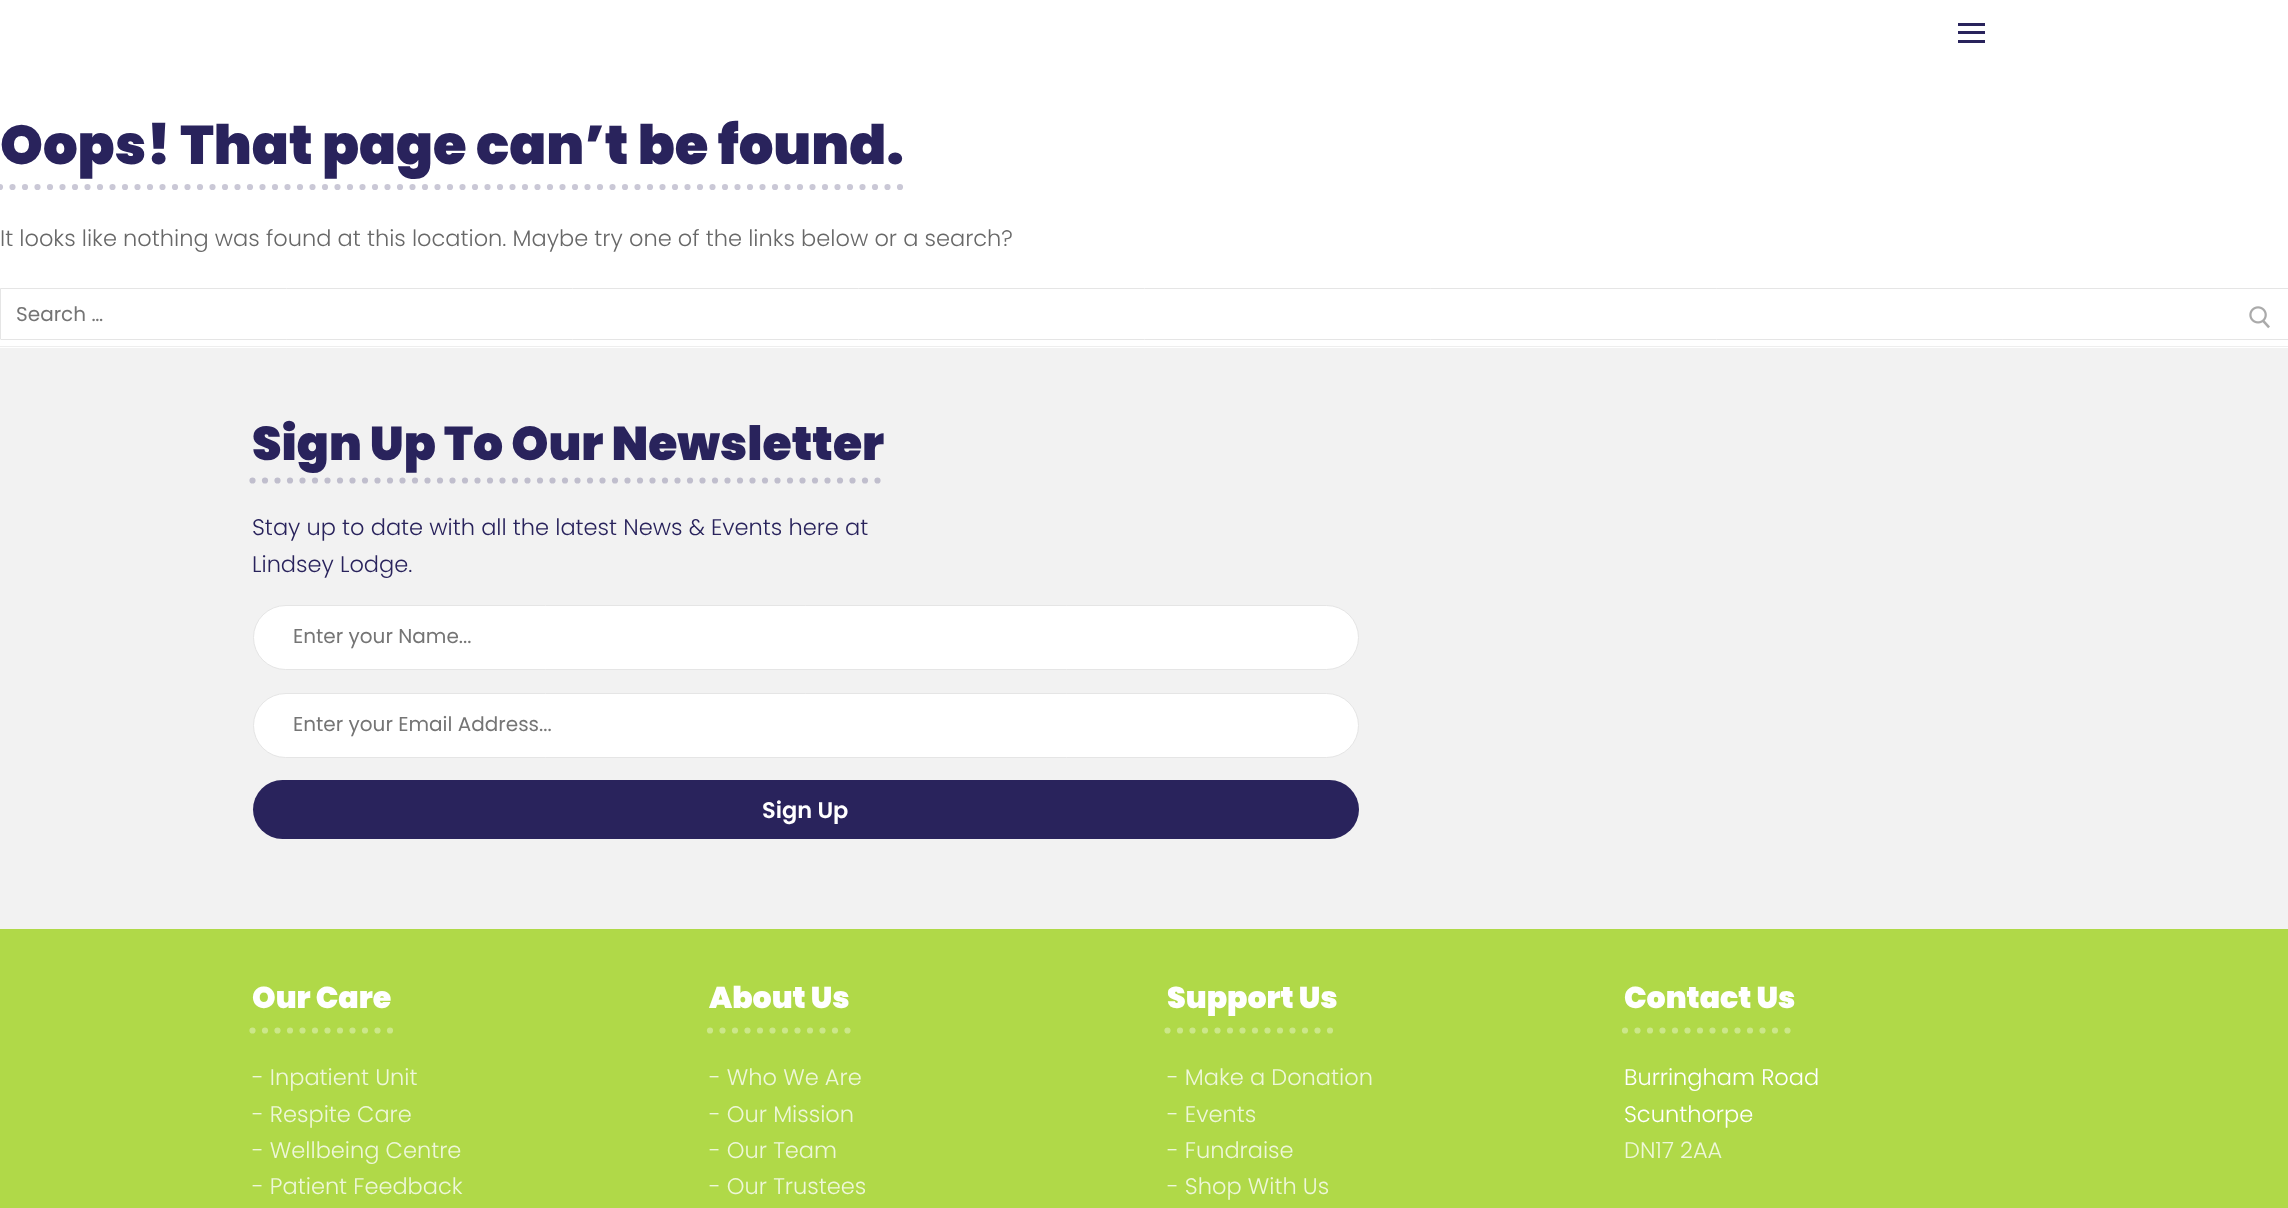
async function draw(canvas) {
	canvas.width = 2288;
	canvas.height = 1208;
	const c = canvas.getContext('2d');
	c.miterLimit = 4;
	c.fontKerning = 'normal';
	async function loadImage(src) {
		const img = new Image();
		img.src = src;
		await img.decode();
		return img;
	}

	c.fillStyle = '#fff';
	c.fillRect(0, 0, 2288, 1208);
	for (const [x, y, w, h, color] of [
		[1958, 31, 27, 3, '#29235c'],
		[1958, 23, 27, 3, '#29235c'],
		[1958, 40, 27, 3, '#29235c'],
	]) {
		c.fillStyle = color;
		c.fillRect(x, y, w, h);
	}
	c.beginPath();
	c.moveTo(0, 187);
	c.lineTo(902.5, 187);
	c.strokeStyle = '#cac8d6';
	c.lineWidth = 6.2;
	c.lineCap = 'round';
	c.setLineDash([0, 12.5]);
	c.stroke();
	c.font = '900 54.5px Poppins';
	c.fillText('Oops! That page can’t be found.', 0, 164);
	c.font = '300 22.5px Poppins';
	c.fillStyle = '#686868';
	c.fillText('It looks like nothing was found at this location. Maybe try one of the links below or a search?', 0, 246);
	c.beginPath();
	c.roundRect(0.5, 288.5, 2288, 51, 0.5);
	c.strokeStyle = '#e5e5e5';
	c.lineWidth = 1;
	c.setLineDash([]);
	c.stroke();
	c.font = '20px Poppins';
	c.fillStyle = '#757575';
	c.fillText('Search …', 16, 321);
	c.drawImage(await loadImage('img1.png'), 2249, 306, 21, 23);
	c.fillStyle = '#f2f2f2';
	c.fillRect(0, 348, 2288, 581);
	c.fillStyle = '#eee';
	c.fillRect(0, 346, 2288, 1);
	c.beginPath();
	c.moveTo(252.5, 480.5);
	c.lineTo(884, 480.5);
	c.strokeStyle = '#c0becd';
	c.lineWidth = 6.2;
	c.setLineDash([0, 12.5]);
	c.stroke();
	c.font = '900 47.25px Poppins';
	c.fillStyle = '#29235c';
	c.fillText('Sign Up To Our Newsletter', 252, 460);
	c.font = '300 22.5px Poppins';
	c.fillText('Stay up to date with all the latest News & Events here at', 252, 535);
	c.fillText('Lindsey Lodge.', 252, 572);
	c.fillStyle = '#fff';
	c.beginPath();
	c.roundRect(253.5, 605.5, 1105, 64, 32);
	c.fill();
	c.strokeStyle = '#e5e5e5';
	c.lineWidth = 1;
	c.setLineDash([]);
	c.stroke();
	c.font = '20px Poppins';
	c.fillStyle = '#757575';
	c.fillText('Enter your Name...', 293, 643);
	c.fillStyle = '#fff';
	c.beginPath();
	c.roundRect(253.5, 693.5, 1105, 64, 32);
	c.fill();
	c.stroke();
	c.fillStyle = '#757575';
	c.fillText('Enter your Email Address...', 293, 731);
	c.fillStyle = '#29235c';
	c.beginPath();
	c.roundRect(253, 780, 1106, 59, 29.5);
	c.fill();
	c.font = '600 22.5px Poppins';
	c.fillStyle = '#fff';
	c.fillText('Sign Up', 762, 818);
	c.fillStyle = '#b0d948';
	c.fillRect(0, 929, 2288, 279);
	c.beginPath();
	c.moveTo(252.5, 1030.5);
	c.lineTo(391, 1030.5);
	c.strokeStyle = '#cce78a';
	c.lineWidth = 6.2;
	c.setLineDash([0, 12.5]);
	c.stroke();
	c.font = '900 30px Poppins';
	c.fillStyle = '#fff';
	c.fillText('Our Care', 252, 1008);
	c.font = '300 22.5px Poppins';
	c.fillStyle = '#eef7d9';
	for (const [text, x, y] of [
		['- Inpatient Unit', 252, 1085],
		['- Respite Care', 252, 1122],
		['- Wellbeing Centre', 252, 1158],
		['- Patient Feedback', 252, 1194],
	]) {
		c.fillText(text, x, y);
	}
	c.beginPath();
	c.moveTo(710, 1030.5);
	c.lineTo(850, 1030.5);
	c.stroke();
	c.font = '900 30px Poppins';
	c.fillStyle = '#fff';
	c.fillText('About Us', 709, 1008);
	c.font = '300 22.5px Poppins';
	c.fillStyle = '#eef7d9';
	for (const [text, x, y] of [
		['- Who We Are', 709, 1085],
		['- Our Mission', 709, 1122],
		['- Our Team', 709, 1158],
		['- Our Trustees', 709, 1194],
	]) {
		c.fillText(text, x, y);
	}
	c.beginPath();
	c.moveTo(1167.5, 1030.5);
	c.lineTo(1337.5, 1030.5);
	c.stroke();
	c.font = '900 30px Poppins';
	c.fillStyle = '#fff';
	c.fillText('Support Us', 1167, 1008);
	c.font = '300 22.5px Poppins';
	c.fillStyle = '#eef7d9';
	for (const [text, x, y] of [
		['- Make a Donation', 1167, 1085],
		['- Events', 1167, 1122],
		['- Fundraise', 1167, 1158],
		['- Shop With Us', 1167, 1194],
	]) {
		c.fillText(text, x, y);
	}
	c.beginPath();
	c.moveTo(1625, 1030.5);
	c.lineTo(1796, 1030.5);
	c.stroke();
	c.font = '900 30px Poppins';
	c.fillStyle = '#fff';
	c.fillText('Contact Us', 1624, 1008);
	c.font = '300 22.5px Poppins';
	c.fillText('Burringham Road', 1624, 1085);
	c.fillText('Scunthorpe', 1624, 1122);
	c.fillStyle = '#eef7d9';
	c.fillText('DN17 2AA', 1624, 1158);
}

draw(document.querySelector('canvas'));
